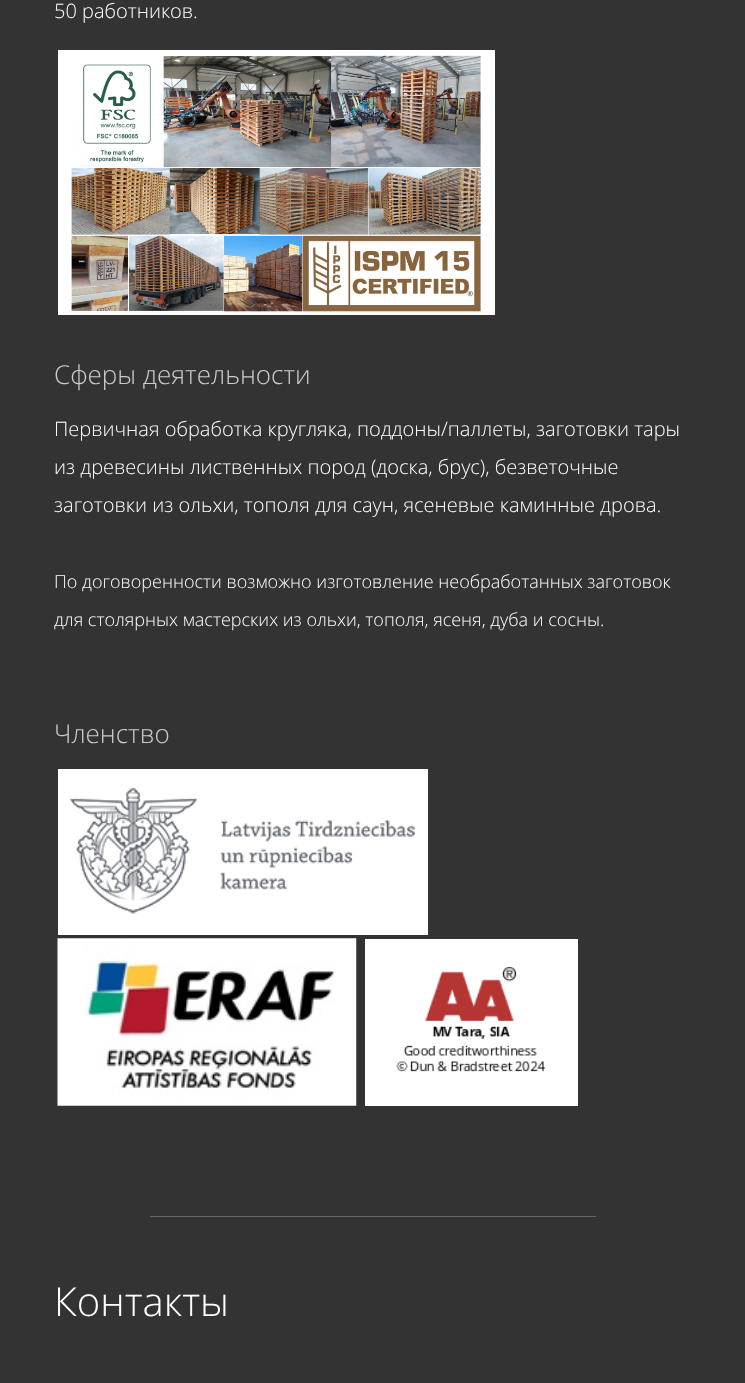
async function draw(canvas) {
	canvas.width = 745;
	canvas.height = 1383;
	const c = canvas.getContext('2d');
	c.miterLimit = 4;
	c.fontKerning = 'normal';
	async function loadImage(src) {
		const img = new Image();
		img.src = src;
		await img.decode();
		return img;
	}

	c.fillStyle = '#333';
	c.fillRect(0, 0, 745, 1383);
	c.font = '300 20px Open Sans';
	c.fillStyle = '#fff';
	c.fillText('50 работников.', 54, 18);
	c.fillRect(58, 50, 437, 265);
	c.drawImage(await loadImage('img1.png'), 71, 55, 410, 257);
	c.font = '300 26px Open Sans';
	c.fillStyle = '#ccc';
	c.fillText('Сферы деятельности', 54, 384);
	c.font = '300 20px Open Sans';
	c.fillStyle = '#fff';
	for (const [text, x, y] of [
		['Первичная обработка кругляка, поддоны/паллеты, заготовки тары', 54, 436],
		['из древесины лиственных пород (доска, брус), безветочные', 54, 474],
		['заготовки из ольхи, тополя для саун, ясеневые каминные дрова.', 54, 512],
	]) {
		c.fillText(text, x, y);
	}
	c.font = '300 18px Open Sans';
	c.fillText('По договоренности возможно изготовление необработанных заготовок', 54, 588);
	c.fillText('для столярных мастерских из ольхи, тополя, ясеня, дуба и сосны.', 54, 626);
	c.font = '300 26px Open Sans';
	c.fillStyle = '#ccc';
	c.fillText('Членство', 54, 743);
	c.fillStyle = '#fff';
	c.fillRect(58, 769, 370, 166);
	c.drawImage(await loadImage('img2.png'), 70, 788, 345, 126);
	c.drawImage(await loadImage('img3.png'), 57, 938, 300, 168);
	c.fillRect(365, 939, 213, 167);
	c.drawImage(await loadImage('img4.png'), 396, 967, 150, 105);
	c.fillStyle = '#666';
	c.fillRect(150, 1216, 446, 1);
	c.font = '300 40px Open Sans';
	c.fillStyle = '#fff';
	c.fillText('Контакты', 54, 1316);
}

draw(document.querySelector('canvas'));
